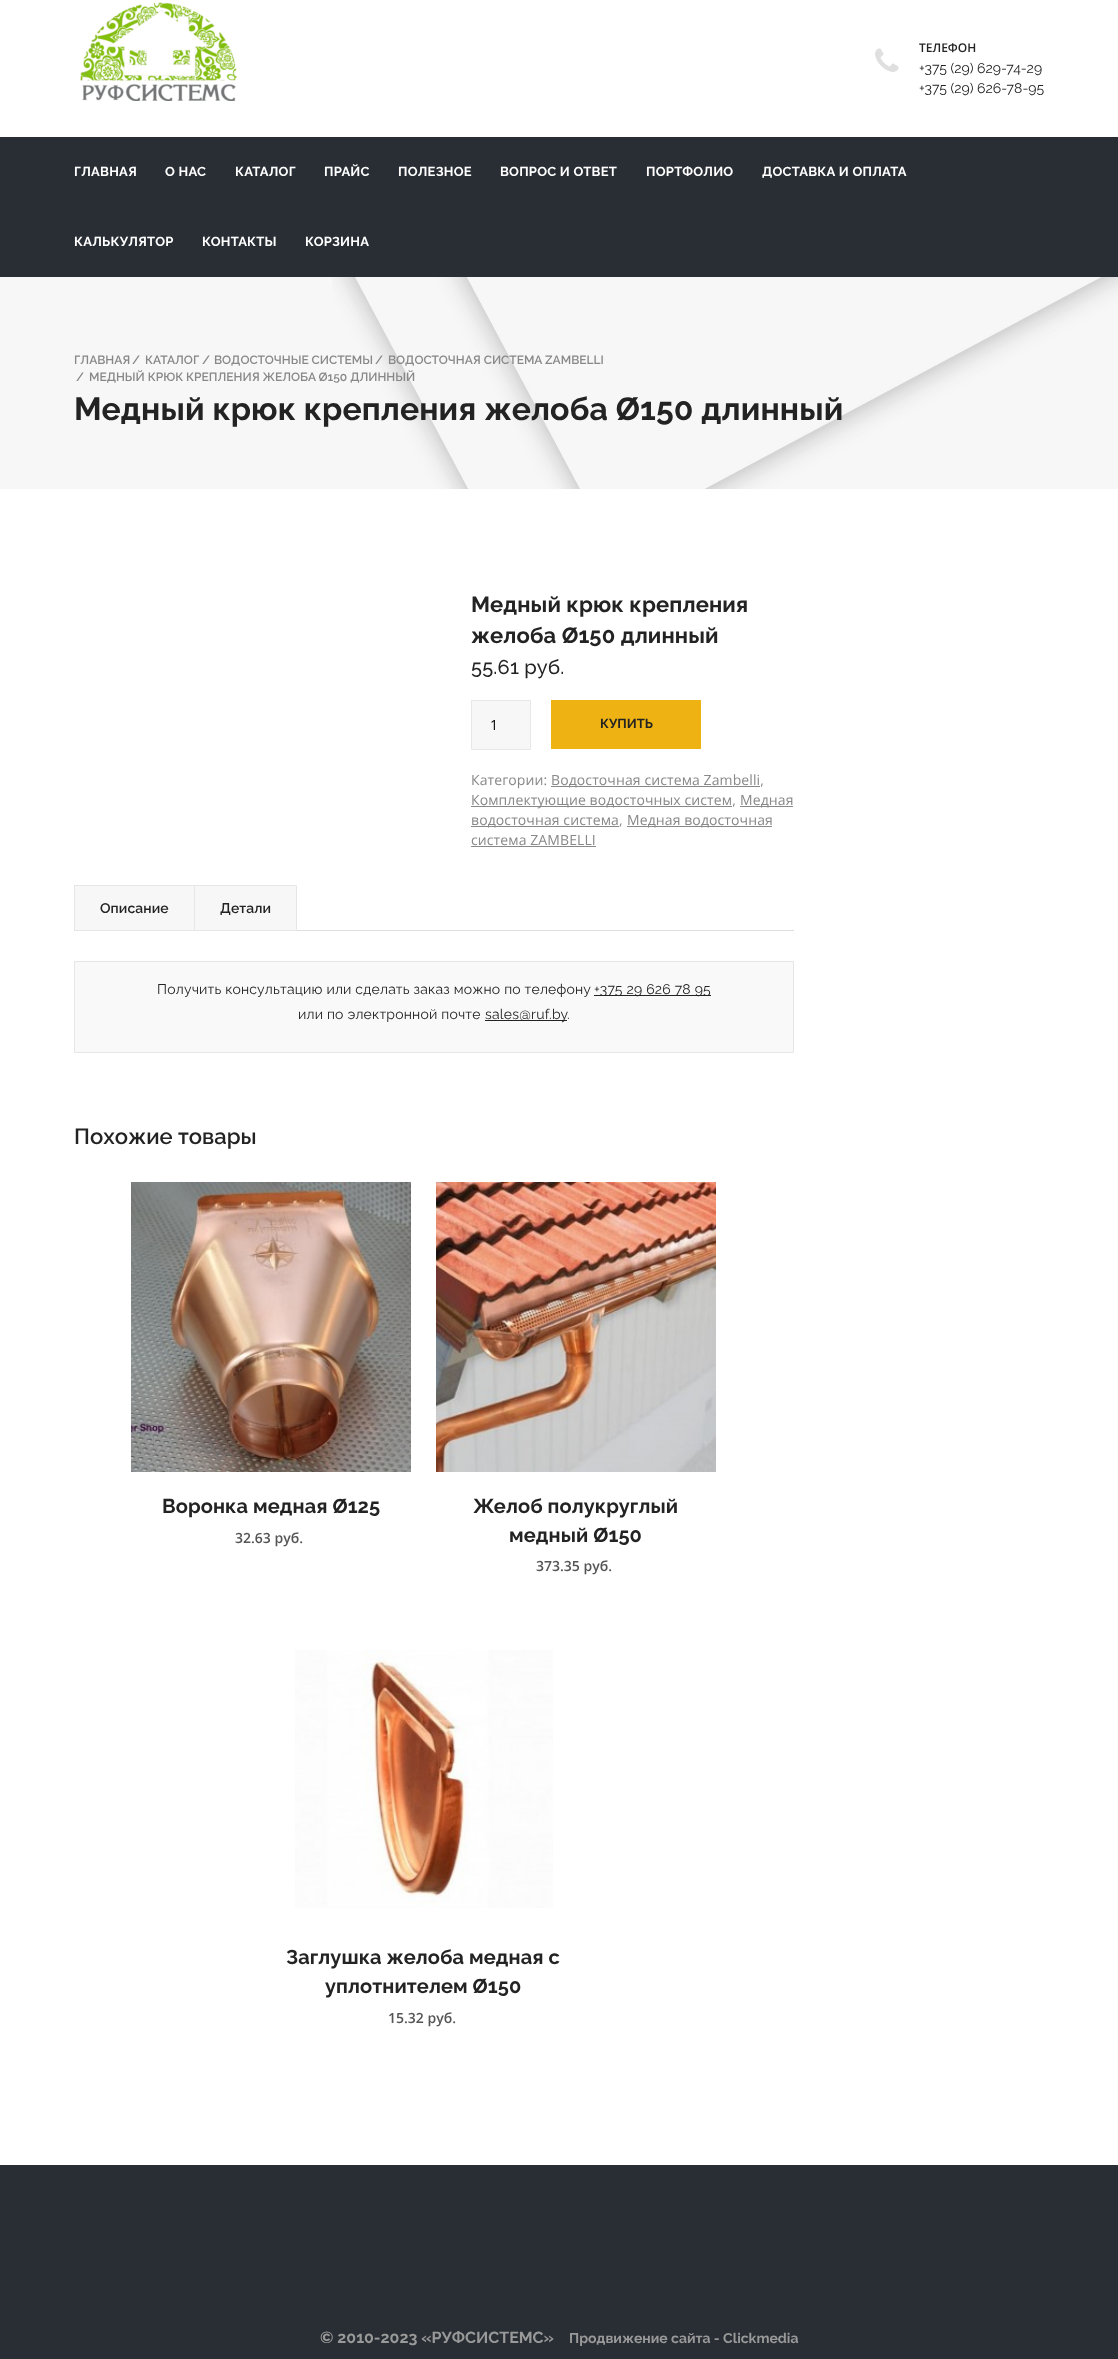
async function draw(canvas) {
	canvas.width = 1118;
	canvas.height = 2359;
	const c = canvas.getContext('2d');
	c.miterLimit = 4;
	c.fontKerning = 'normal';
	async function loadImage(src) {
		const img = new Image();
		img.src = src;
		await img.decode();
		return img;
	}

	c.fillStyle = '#fff';
	c.fillRect(0, 0, 1118, 2359);
	c.drawImage(await loadImage('img1.png'), 80, 2, 158, 99);
	c.drawImage(await loadImage('img2.png'), 875, 48, 24, 24);
	c.font = '600 12px Open Sans';
	c.fillStyle = '#232323';
	c.fillText('ТЕЛЕФОН', 919, 52);
	c.font = '14px Raleway';
	c.fillText('+375 (29) 629-74-29', 919, 73);
	c.fillText('+375 (29) 626-78-95', 919, 93);
	c.fillStyle = '#292e34';
	c.fillRect(0, 137, 1118, 140);
	c.letterSpacing = '0.25px';
	c.font = 'bold 13px Raleway';
	c.fillStyle = '#fff';
	for (const [text, x, y] of [
		['ГЛАВНАЯ', 74, 176],
		['О НАС', 165, 176],
		['КАТАЛОГ', 235, 176],
		['ПРАЙС', 324, 176],
		['ПОЛЕЗНОЕ', 398, 176],
		['ВОПРОС И ОТВЕТ', 500, 176],
		['ПОРТФОЛИО', 646, 176],
		['ДОСТАВКА И ОПЛАТА', 762, 176],
		['КАЛЬКУЛЯТОР', 74, 246],
		['КОНТАКТЫ', 202, 246],
		['КОРЗИНА', 305, 246],
	]) {
		c.fillText(text, x, y);
	}
	c.fillStyle = '#f7f7f7';
	c.fillRect(0, 277, 332, 212);
	c.drawImage(await loadImage('img3.png'), 332, 277, 786, 212);
	c.letterSpacing = '0px';
	c.font = '600 12px Raleway';
	c.fillStyle = '#888';
	for (const [text, x, y] of [
		['ГЛАВНАЯ', 74, 364],
		['/', 132, 364],
		['КАТАЛОГ', 145, 364],
		['/', 202, 364],
		['ВОДОСТОЧНЫЕ СИСТЕМЫ', 214, 364],
		['/', 375, 364],
		['ВОДОСТОЧНАЯ СИСТЕМА ZAMBELLI', 388, 364],
		['/', 76, 381],
		['МЕДНЫЙ КРЮК КРЕПЛЕНИЯ ЖЕЛОБА Ø150 ДЛИННЫЙ', 89, 381],
	]) {
		c.fillText(text, x, y);
	}
	c.letterSpacing = '0.1px';
	c.font = 'bold 32px Raleway';
	c.fillStyle = '#232323';
	c.fillText('Медный крюк крепления желоба Ø150 длинный', 74, 420);
	c.font = 'bold 22px Raleway';
	c.fillText('Медный крюк крепления', 471, 612);
	c.fillText('желоба Ø150 длинный', 471, 643);
	c.letterSpacing = '0.2px';
	c.font = '500 20px Raleway';
	c.fillText('55.61 руб.', 471, 674);
	c.fillStyle = '#f7f7f7';
	c.beginPath();
	c.rect(471.5, 700.5, 59, 49);
	c.fill();
	c.strokeStyle = '#e7e7e7';
	c.stroke();
	c.letterSpacing = '0px';
	c.font = '14px Open Sans';
	c.fillStyle = '#000';
	c.fillText('1', 490, 730);
	c.fillStyle = '#eeb313';
	c.fillRect(551, 700, 150, 49);
	c.font = 'bold 13px Raleway';
	c.fillStyle = '#232323';
	c.fillText('КУПИТЬ', 600, 728);
	c.letterSpacing = '0.1px';
	c.font = '14px Open Sans';
	c.fillStyle = '#888';
	c.fillText('Категории:', 471, 785);
	c.fillRect(551, 786, 209, 1);
	c.fillText('Водосточная система Zambelli,', 551, 785);
	c.fillRect(471, 806, 261, 1);
	c.fillText('Комплектующие водосточных систем,', 471, 805);
	c.fillRect(740, 806, 53, 1);
	c.fillText('Медная', 740, 805);
	c.fillRect(471, 826, 148, 1);
	c.fillText('водосточная система,', 471, 825);
	c.fillRect(627, 826, 145, 1);
	c.fillText('Медная водосточная', 627, 825);
	c.fillText('система ZAMBELLI', 471, 845);
	for (const [x, y, w, h, color] of [
		[471, 846, 125, 1, '#888'],
		[75, 886, 119, 44, '#f7f7f7'],
		[74, 885, 120, 1, '#e6e6e6'],
		[74, 930, 120, 1, '#e6e6e6'],
		[74, 885, 1, 46, '#e6e6e6'],
	]) {
		c.fillStyle = color;
		c.fillRect(x, y, w, h);
	}
	c.font = '600 14px Raleway';
	c.fillStyle = '#232323';
	c.fillText('Описание', 100, 913);
	c.fillStyle = '#f7f7f7';
	c.beginPath();
	c.rect(194.5, 885.5, 102, 45);
	c.fill();
	c.strokeStyle = '#e6e6e6';
	c.stroke();
	c.fillStyle = '#232323';
	c.fillText('Детали', 220, 913);
	c.fillStyle = '#dedede';
	c.fillRect(297, 930, 497, 1);
	c.fillStyle = '#f9f9f9';
	c.beginPath();
	c.rect(74.5, 961.5, 719, 91);
	c.fill();
	c.stroke();
	c.letterSpacing = '0.2px';
	c.font = '14px Raleway';
	c.fillStyle = '#232323';
	c.fillText('Получить консультацию или сделать заказ можно по телефону', 157, 994);
	c.fillRect(594, 995, 117, 1);
	c.fillText('+375 29 626 78 95', 594, 994);
	c.fillText('или по электронной почте', 298, 1019);
	c.fillRect(485, 1020, 82, 1);
	c.fillText('sales@ruf.by', 485, 1019);
	c.fillText('.', 567, 1019);
	c.letterSpacing = '0px';
	c.font = '600 22px Raleway';
	c.fillText('Похожие товары', 74, 1144);
	c.drawImage(await loadImage('img4.png'), 131, 1182, 280, 290);
	c.letterSpacing = '0.1px';
	c.font = 'bold 20px Raleway';
	c.fillText('Воронка медная Ø125', 162, 1513);
	c.letterSpacing = '0px';
	c.font = '600 14px Open Sans';
	c.fillStyle = '#555';
	c.fillText('32.63 руб.', 235, 1543);
	c.drawImage(await loadImage('img5.png'), 436, 1182, 280, 290);
	c.letterSpacing = '0.1px';
	c.font = 'bold 20px Raleway';
	c.fillStyle = '#232323';
	c.fillText('Желоб полукруглый', 473, 1513);
	c.fillText('медный Ø150', 509, 1542);
	c.letterSpacing = '0px';
	c.font = '600 14px Open Sans';
	c.fillStyle = '#555';
	c.fillText('373.35 руб.', 536, 1571);
	c.drawImage(await loadImage('img6.png'), 295, 1650, 258, 258);
	c.letterSpacing = '0.1px';
	c.font = 'bold 20px Raleway';
	c.fillStyle = '#232323';
	c.fillText('Заглушка желоба медная с', 286, 1964);
	c.fillText('уплотнителем Ø150', 325, 1993);
	c.letterSpacing = '0px';
	c.font = '600 14px Open Sans';
	c.fillStyle = '#555';
	c.fillText('15.32 руб.', 388, 2023);
	c.fillStyle = '#292e34';
	c.fillRect(0, 2165, 1118, 194);
	c.font = 'bold 16px Raleway';
	c.fillStyle = '#999';
	c.fillText('© 2010-2023 «РУФСИСТЕМС»', 320, 2343);
	c.font = 'bold 14px Raleway';
	c.fillText('Продвижение сайта - Clickmedia', 569, 2343);
}

draw(document.querySelector('canvas'));
